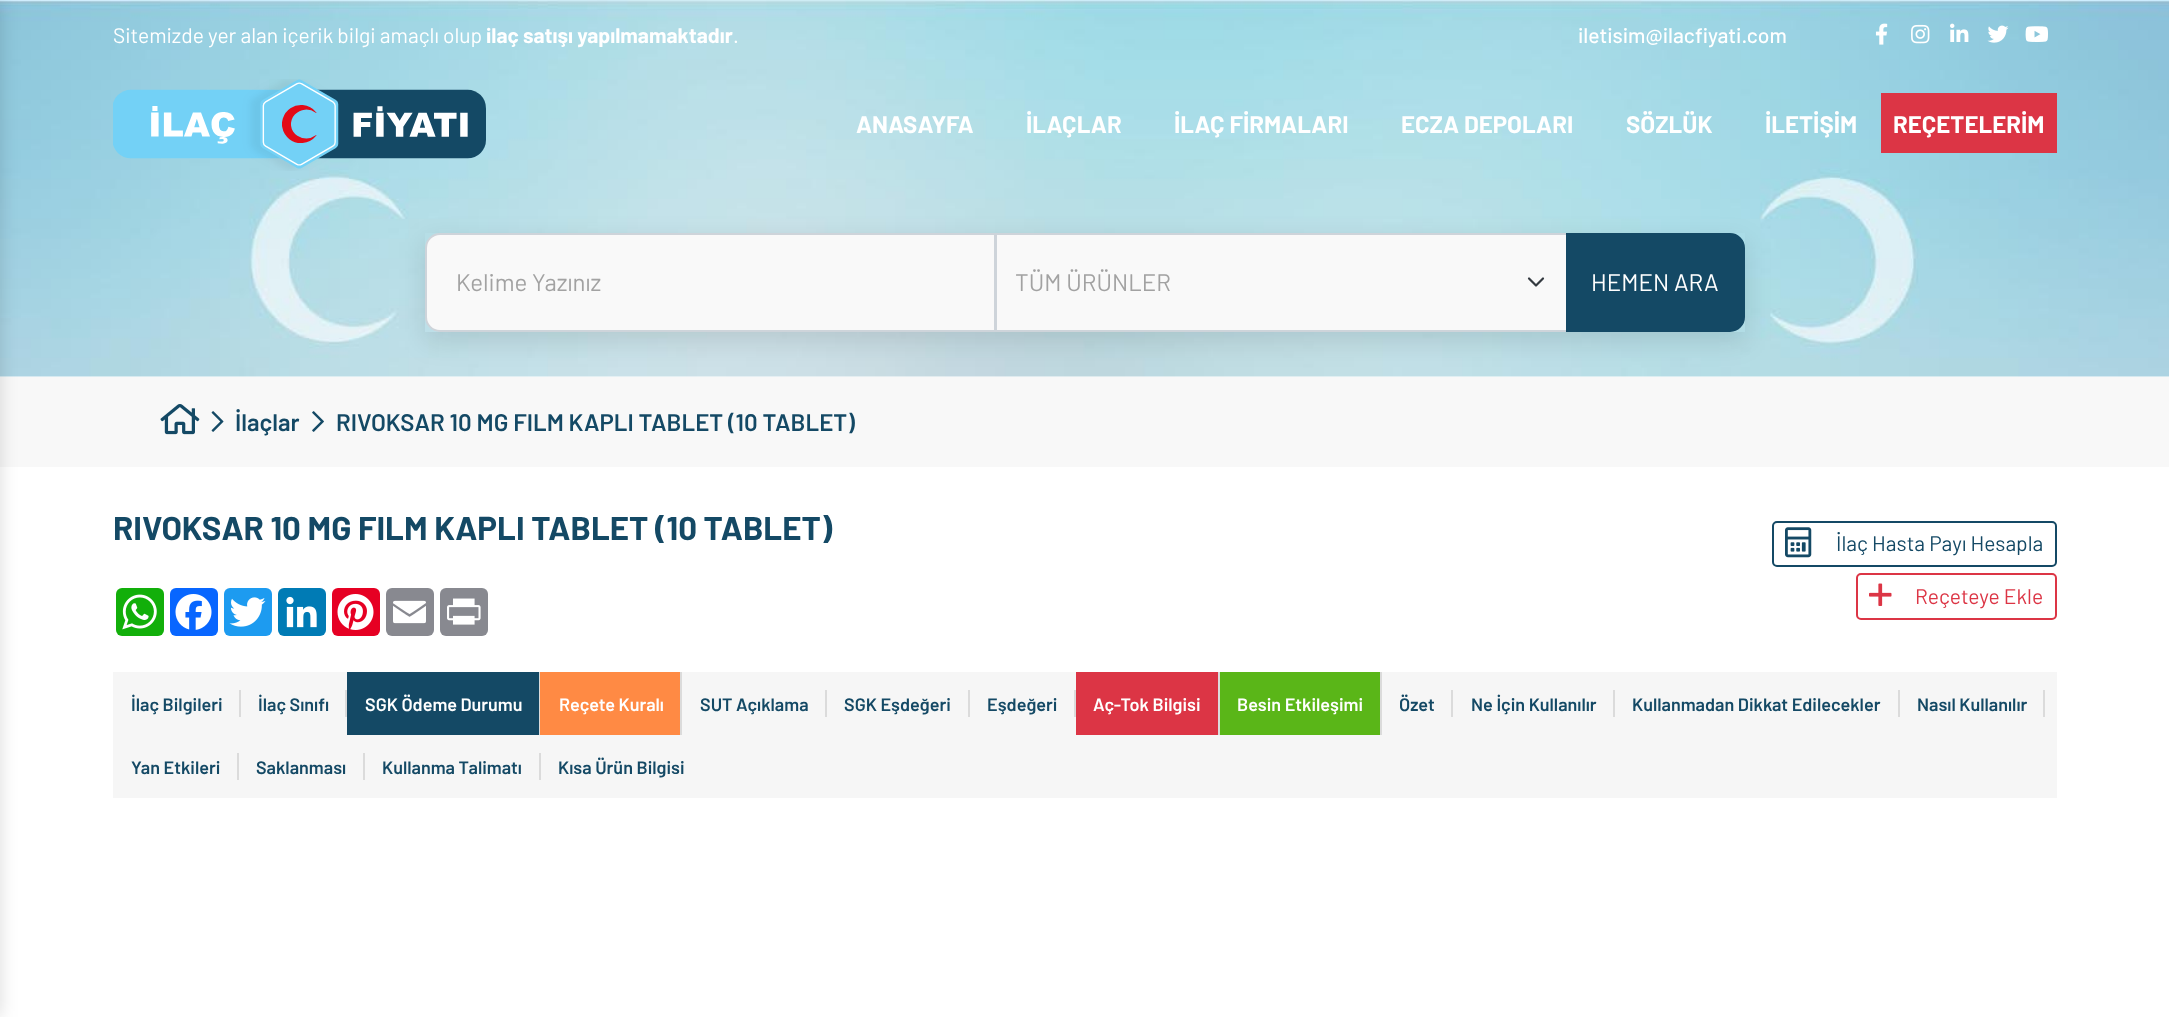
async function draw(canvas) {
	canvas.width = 2169;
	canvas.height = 1017;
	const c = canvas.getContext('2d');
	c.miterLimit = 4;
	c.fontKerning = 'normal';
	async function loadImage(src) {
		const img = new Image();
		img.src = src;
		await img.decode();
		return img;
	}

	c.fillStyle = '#fff';
	c.fillRect(0, 0, 2169, 1017);
	c.drawImage(await loadImage('img7.png'), 0, 0, 2169, 377);
	c.fillStyle = '#f8f8f8';
	c.fillRect(0, 377, 2169, 90);
	c.fillStyle = '#00000024';
	c.filter = 'blur(9px)';
	c.beginPath();
	c.rect(-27, 0, 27, 1017);
	c.fill();
	c.filter = 'none';
	c.font = '21px Barlow';
	c.fillStyle = '#fff';
	c.fillText('Sitemizde yer alan içerik bilgi amaçlı olup', 113, 43);
	c.font = 'bold 21px Barlow';
	c.fillText('ilaç satışı yapılmamaktadır', 486, 43);
	c.font = '21px Barlow';
	c.fillText('.', 733, 43);
	c.font = '500 21px Barlow';
	c.fillText('iletisim@ilacfiyati.com', 1578, 43);
	c.drawImage(await loadImage('img1.png'), 1875, 23, 13, 22);
	c.drawImage(await loadImage('img2.png'), 1911, 24, 19, 20);
	c.drawImage(await loadImage('img3.png'), 1950, 23, 19, 19);
	c.drawImage(await loadImage('img4.png'), 1987, 25, 22, 18);
	c.drawImage(await loadImage('img5.png'), 2025, 26, 23, 16);
	c.drawImage(await loadImage('img6.png'), 113, 79, 373, 92);
	c.font = 'bold 24px Barlow';
	for (const [text, x, y] of [
		['ANASAYFA', 856, 133],
		['İLAÇLAR', 1026, 133],
		['İLAÇ FİRMALARI', 1174, 133],
		['ECZA DEPOLARI', 1401, 133],
		['SÖZLÜK', 1626, 133],
		['İLETİŞİM', 1765, 133],
	]) {
		c.fillText(text, x, y);
	}
	c.fillStyle = '#dc3545';
	c.fillRect(1881, 93, 176, 60);
	c.fillStyle = '#fff';
	c.fillText('REÇETELERİM', 1893, 133);
	c.save();
	c.beginPath();
	c.moveTo(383, 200);
	c.lineTo(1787, 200);
	c.lineTo(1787, 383);
	c.lineTo(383, 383);
	c.closePath();
	c.moveTo(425, 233);
	c.lineTo(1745, 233);
	c.lineTo(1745, 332);
	c.lineTo(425, 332);
	c.closePath();
	c.clip('evenodd');
	c.fillStyle = '#0000001c';
	c.filter = 'blur(13.5px)';
	c.beginPath();
	c.rect(425, 242, 1320, 99);
	c.fill();
	c.filter = 'none';
	c.restore();
	c.fillStyle = '#f9f9f9';
	c.beginPath();
	c.roundRect(426, 234, 569, 97, [14, 0, 0, 14]);
	c.fill();
	c.strokeStyle = '#ced4da';
	c.lineWidth = 2;
	c.stroke();
	c.font = '24px Barlow';
	c.fillStyle = '#a2a2a2';
	c.fillText('Kelime Yazınız', 456, 291);
	c.fillStyle = '#f9f9f9';
	c.fillRect(997, 235, 569, 95);
	c.beginPath();
	c.moveTo(1529, 278.5);
	c.lineTo(1536, 285.5);
	c.lineTo(1543, 278.5);
	c.strokeStyle = '#343a40';
	c.lineWidth = 2.2;
	c.lineCap = 'round';
	c.lineJoin = 'round';
	c.stroke();
	c.strokeStyle = '#ced4da';
	c.lineWidth = 2;
	c.lineJoin = 'miter';
	c.strokeRect(996, 234, 571, 97);
	c.fillStyle = '#a2a2a2';
	c.fillText('TÜM ÜRÜNLER', 1015, 291);
	c.fillStyle = '#144965';
	c.beginPath();
	c.roundRect(1567, 234, 177, 97, [0, 14, 14, 0]);
	c.fill();
	c.strokeStyle = '#144965';
	c.stroke();
	c.fillStyle = '#fff';
	c.fillText('HEMEN ARA', 1591, 291);
	c.drawImage(await loadImage('img8.png'), 160, 404, 40, 31);
	c.drawImage(await loadImage('img9.png'), 211, 411, 13, 21);
	c.font = '600 24px Barlow';
	c.fillStyle = '#144965';
	c.fillText('İlaçlar', 235, 431);
	c.drawImage(await loadImage('img10.png'), 312, 411, 12, 21);
	c.fillText('RIVOKSAR 10 MG FILM KAPLI TABLET (10 TABLET)', 336, 431);
	c.font = 'bold 33px Barlow';
	c.fillText('RIVOKSAR 10 MG FILM KAPLI TABLET (10 TABLET)', 113, 540);
	c.fillStyle = '#12af0a';
	c.beginPath();
	c.roundRect(116, 588, 48, 48, 6);
	c.fill();
	c.drawImage(await loadImage('img11.png'), 122, 594, 35, 36);
	c.fillStyle = '#0866ff';
	c.beginPath();
	c.roundRect(170, 588, 48, 48, 6);
	c.fill();
	c.drawImage(await loadImage('img12.png'), 175, 594, 37, 36);
	c.fillStyle = '#1d9bf0';
	c.beginPath();
	c.roundRect(224, 588, 48, 48, 6);
	c.fill();
	c.drawImage(await loadImage('img13.png'), 229, 597, 37, 30);
	c.fillStyle = '#007bb5';
	c.beginPath();
	c.roundRect(278, 588, 48, 48, 6);
	c.fill();
	c.drawImage(await loadImage('img14.png'), 286, 596, 31, 32);
	c.fillStyle = '#e60023';
	c.beginPath();
	c.roundRect(332, 588, 48, 48, 6);
	c.fill();
	c.drawImage(await loadImage('img15.png'), 337, 594, 37, 36);
	c.fillStyle = '#888990';
	c.beginPath();
	c.roundRect(386, 588, 48, 48, 6);
	c.fill();
	c.drawImage(await loadImage('img16.png'), 393, 600, 33, 24);
	c.beginPath();
	c.roundRect(440, 588, 48, 48, 6);
	c.fill();
	c.drawImage(await loadImage('img17.png'), 447, 598, 34, 27);
	c.beginPath();
	c.roundRect(1773, 522, 283, 44, 4);
	c.stroke();
	c.drawImage(await loadImage('img18.png'), 1785, 527, 27, 31);
	c.font = '21px Barlow';
	c.fillStyle = '#144965';
	c.fillText('İlaç Hasta Payı Hesapla', 1836, 551);
	c.beginPath();
	c.roundRect(1857, 574, 199, 45, 4);
	c.strokeStyle = '#dc3545';
	c.stroke();
	c.drawImage(await loadImage('img19.png'), 1869, 583, 23, 23);
	c.fillStyle = '#dc3545';
	c.fillText('Reçeteye Ekle', 1915, 604);
	c.fillStyle = '#f6f6f6';
	c.fillRect(113, 672, 1944, 126);
	c.font = '600 18px Barlow';
	c.fillStyle = '#144965';
	c.fillText('İlaç Bilgileri', 131, 711);
	c.fillStyle = '#dbdbdb';
	c.fillRect(239, 690, 2, 27);
	c.fillStyle = '#144965';
	c.fillText('İlaç Sınıfı', 258, 711);
	c.fillStyle = '#dbdbdb';
	c.fillRect(345, 690, 2, 27);
	c.fillStyle = '#144965';
	c.fillRect(347, 672, 192, 63);
	c.fillStyle = '#fff';
	c.fillText('SGK Ödeme Durumu', 365, 711);
	c.fillStyle = '#dbdbdb';
	c.fillRect(539, 672, 1, 63);
	c.fillStyle = '#ff8a44';
	c.fillRect(540, 672, 140, 63);
	c.fillStyle = '#fff';
	c.fillText('Reçete Kuralı', 559, 711);
	c.fillStyle = '#dbdbdb';
	c.fillRect(680, 672, 2, 63);
	c.fillStyle = '#144965';
	c.fillText('SUT Açıklama', 700, 711);
	c.fillStyle = '#dbdbdb';
	c.fillRect(825, 690, 2, 27);
	c.fillStyle = '#144965';
	c.fillText('SGK Eşdeğeri', 844, 711);
	c.fillStyle = '#dbdbdb';
	c.fillRect(968, 690, 2, 27);
	c.fillStyle = '#144965';
	c.fillText('Eşdeğeri', 987, 711);
	c.fillStyle = '#dbdbdb';
	c.fillRect(1074, 690, 2, 27);
	c.fillStyle = '#dc3545';
	c.fillRect(1076, 672, 142, 63);
	c.fillStyle = '#fff';
	c.fillText('Aç-Tok Bilgisi', 1093, 711);
	c.fillStyle = '#dbdbdb';
	c.fillRect(1218, 672, 2, 63);
	c.fillStyle = '#5ab618';
	c.fillRect(1220, 672, 160, 63);
	c.fillStyle = '#fff';
	c.fillText('Besin Etkileşimi', 1237, 711);
	c.fillStyle = '#dbdbdb';
	c.fillRect(1380, 672, 2, 63);
	c.fillStyle = '#144965';
	c.fillText('Özet', 1399, 711);
	c.fillStyle = '#dbdbdb';
	c.fillRect(1451, 690, 2, 27);
	c.fillStyle = '#144965';
	c.fillText('Ne İçin Kullanılır', 1471, 711);
	c.fillStyle = '#dbdbdb';
	c.fillRect(1613, 690, 2, 27);
	c.fillStyle = '#144965';
	c.fillText('Kullanmadan Dikkat Edilecekler', 1632, 711);
	c.fillStyle = '#dbdbdb';
	c.fillRect(1898, 690, 2, 27);
	c.fillStyle = '#144965';
	c.fillText('Nasıl Kullanılır', 1917, 711);
	c.fillStyle = '#dbdbdb';
	c.fillRect(2043, 690, 2, 27);
	c.fillStyle = '#144965';
	c.fillText('Yan Etkileri', 131, 774);
	c.fillStyle = '#dbdbdb';
	c.fillRect(237, 753, 2, 27);
	c.fillStyle = '#144965';
	c.fillText('Saklanması', 256, 774);
	c.fillStyle = '#dbdbdb';
	c.fillRect(363, 753, 2, 27);
	c.fillStyle = '#144965';
	c.fillText('Kullanma Talimatı', 382, 774);
	c.fillStyle = '#dbdbdb';
	c.fillRect(539, 753, 2, 27);
	c.fillStyle = '#144965';
	c.fillText('Kısa Ürün Bilgisi', 558, 774);
}

draw(document.querySelector('canvas'));
